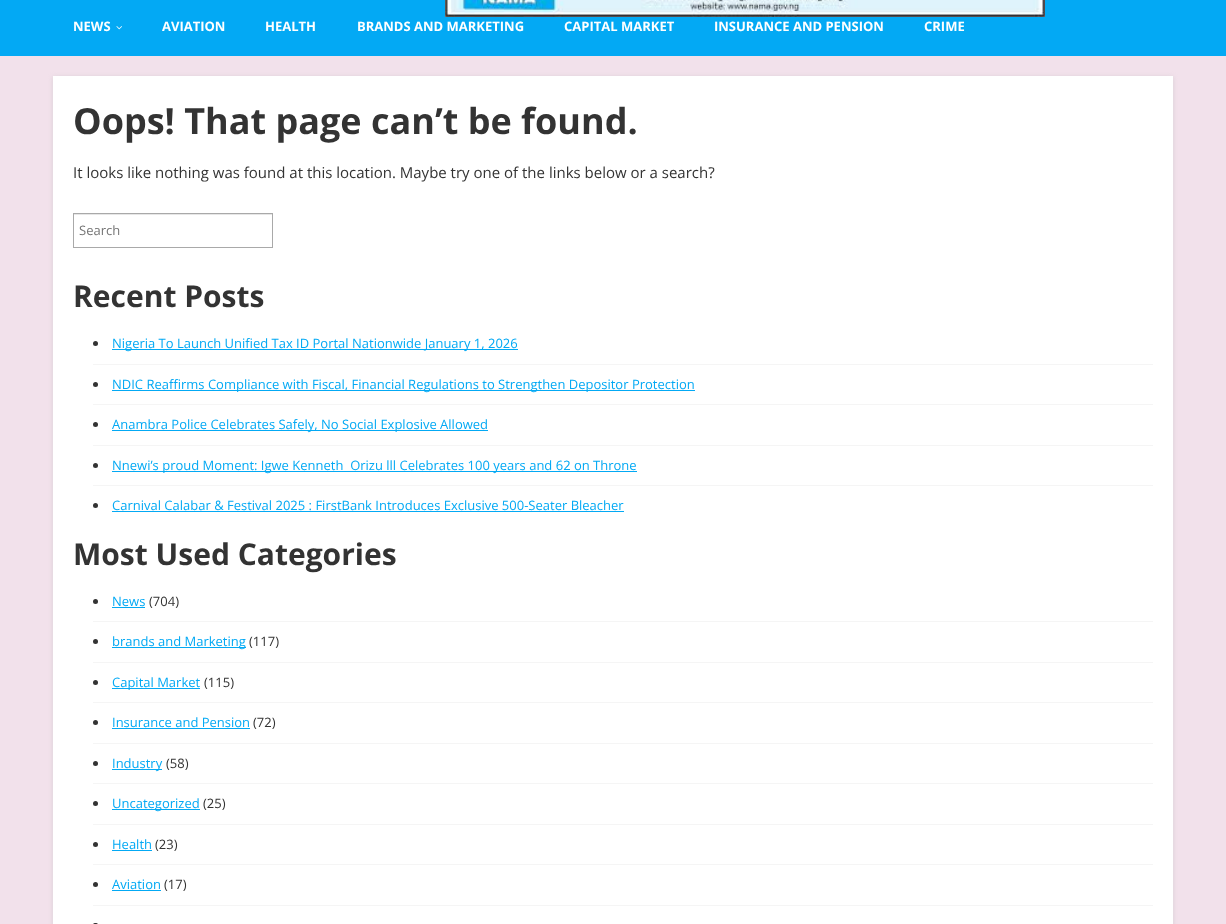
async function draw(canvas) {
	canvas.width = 1226;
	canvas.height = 924;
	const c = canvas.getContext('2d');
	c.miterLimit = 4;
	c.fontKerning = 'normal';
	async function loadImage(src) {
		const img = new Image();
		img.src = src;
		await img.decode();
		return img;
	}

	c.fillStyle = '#f2e1eb';
	c.fillRect(0, 0, 1226, 924);
	c.fillStyle = '#03a9f4';
	c.fillRect(0, 0, 1226, 56);
	c.drawImage(await loadImage('img1.png'), 445, 0, 600, 17);
	c.font = 'bold 13px Open Sans';
	c.fillStyle = '#fff';
	c.fillText('NEWS', 73, 31);
	c.drawImage(await loadImage('img2.png'), 116, 26, 6, 4);
	for (const [text, x, y] of [
		['AVIATION', 162, 31],
		['HEALTH', 265, 31],
		['BRANDS AND MARKETING', 357, 31],
		['CAPITAL MARKET', 564, 31],
		['INSURANCE AND PENSION', 714, 31],
		['CRIME', 924, 31],
	]) {
		c.fillText(text, x, y);
	}
	c.fillStyle = '#bebebe75';
	c.filter = 'blur(2.5px)';
	c.beginPath();
	c.rect(53, 77, 1120, 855);
	c.fill();
	c.filter = 'none';
	c.fillStyle = '#fff';
	c.fillRect(53, 76, 1120, 848);
	c.font = 'bold 36px Open Sans';
	c.fillStyle = '#333';
	c.fillText('Oops! That page can’t be found.', 73, 134);
	c.font = '15px Open Sans';
	c.fillText('It looks like nothing was found at this location. Maybe try one of the links below or a search?', 73, 178);
	c.fillStyle = '#e6e6e6';
	c.fillRect(74, 214, 198, 1);
	c.strokeStyle = '#a9a9a9';
	c.strokeRect(73.5, 213.5, 199, 34);
	c.font = '13px Open Sans';
	c.fillStyle = '#757575';
	c.fillText('Search', 79, 235);
	c.font = 'bold 30px Open Sans';
	c.fillStyle = '#333';
	c.fillText('Recent Posts', 73, 307);
	c.fillStyle = '#f5f5f5';
	c.fillRect(93, 364, 1060, 1);
	c.fillStyle = '#333';
	c.beginPath();
	c.arc(95.5, 343.5, 2.5, 0, 2 * Math.PI);
	c.fill();
	c.fillStyle = '#03a9f4';
	c.fillRect(112, 349, 406, 1);
	c.font = '13px Open Sans';
	c.fillText('Nigeria To Launch Unified Tax ID Portal Nationwide January 1, 2026', 112, 348);
	c.fillStyle = '#f5f5f5';
	c.fillRect(93, 404, 1060, 1);
	c.fillStyle = '#333';
	c.beginPath();
	c.arc(95.5, 384.5, 2.5, 0, 2 * Math.PI);
	c.fill();
	c.fillStyle = '#03a9f4';
	c.fillRect(112, 390, 583, 1);
	c.fillText('NDIC Reaffirms Compliance with Fiscal, Financial Regulations to Strengthen Depositor Protection', 112, 389);
	c.fillStyle = '#f5f5f5';
	c.fillRect(93, 445, 1060, 1);
	c.fillStyle = '#333';
	c.beginPath();
	c.arc(95.5, 424.5, 2.5, 0, 2 * Math.PI);
	c.fill();
	c.fillStyle = '#03a9f4';
	c.fillRect(112, 430, 376, 1);
	c.fillText('Anambra Police Celebrates Safely, No Social Explosive Allowed', 112, 429);
	c.fillStyle = '#f5f5f5';
	c.fillRect(93, 485, 1060, 1);
	c.fillStyle = '#333';
	c.beginPath();
	c.arc(95.5, 465.5, 2.5, 0, 2 * Math.PI);
	c.fill();
	c.fillStyle = '#03a9f4';
	c.fillRect(112, 471, 525, 1);
	c.fillText('Nnewi’s proud Moment: Igwe Kenneth  Orizu lll Celebrates 100 years and 62 on Throne', 112, 470);
	c.fillStyle = '#333';
	c.beginPath();
	c.arc(95.5, 505.5, 2.5, 0, 2 * Math.PI);
	c.fill();
	c.fillStyle = '#03a9f4';
	c.fillText('Carnival Calabar & Festival 2025 : FirstBank Introduces Exclusive 500-Seater Bleacher', 112, 510);
	c.fillRect(112, 511, 512, 1);
	c.font = 'bold 30px Open Sans';
	c.fillStyle = '#333';
	c.fillText('Most Used Categories', 73, 565);
	c.fillStyle = '#f5f5f5';
	c.fillRect(93, 621, 1060, 1);
	c.fillStyle = '#333';
	c.beginPath();
	c.arc(95.5, 601.5, 2.5, 0, 2 * Math.PI);
	c.fill();
	c.font = '13px Open Sans';
	c.fillStyle = '#03a9f4';
	c.fillText('News', 112, 606);
	c.fillRect(112, 607, 33, 1);
	c.fillStyle = '#333';
	c.fillText('(704)', 149, 606);
	c.fillStyle = '#f5f5f5';
	c.fillRect(93, 662, 1060, 1);
	c.fillStyle = '#333';
	c.beginPath();
	c.arc(95.5, 641.5, 2.5, 0, 2 * Math.PI);
	c.fill();
	c.fillStyle = '#03a9f4';
	c.fillRect(112, 647, 134, 1);
	c.fillText('brands and Marketing', 112, 646);
	c.fillStyle = '#333';
	c.fillText('(117)', 249, 646);
	c.fillStyle = '#f5f5f5';
	c.fillRect(93, 702, 1060, 1);
	c.fillStyle = '#333';
	c.beginPath();
	c.arc(95.5, 682.5, 2.5, 0, 2 * Math.PI);
	c.fill();
	c.fillStyle = '#03a9f4';
	c.fillRect(112, 688, 88, 1);
	c.fillText('Capital Market', 112, 687);
	c.fillStyle = '#333';
	c.fillText('(115)', 204, 687);
	c.fillStyle = '#f5f5f5';
	c.fillRect(93, 743, 1060, 1);
	c.fillStyle = '#333';
	c.beginPath();
	c.arc(95.5, 722.5, 2.5, 0, 2 * Math.PI);
	c.fill();
	c.fillStyle = '#03a9f4';
	c.fillText('Insurance and Pension', 112, 727);
	c.fillRect(112, 728, 138, 1);
	c.fillStyle = '#333';
	c.fillText('(72)', 253, 727);
	c.fillStyle = '#f5f5f5';
	c.fillRect(93, 783, 1060, 1);
	c.fillStyle = '#333';
	c.beginPath();
	c.arc(95.5, 763.5, 2.5, 0, 2 * Math.PI);
	c.fill();
	c.fillStyle = '#03a9f4';
	c.fillRect(112, 769, 50, 1);
	c.fillText('Industry', 112, 768);
	c.fillStyle = '#333';
	c.fillText('(58)', 166, 768);
	c.fillStyle = '#f5f5f5';
	c.fillRect(93, 824, 1060, 1);
	c.fillStyle = '#333';
	c.beginPath();
	c.arc(95.5, 803.5, 2.5, 0, 2 * Math.PI);
	c.fill();
	c.fillStyle = '#03a9f4';
	c.fillRect(112, 809, 88, 1);
	c.fillText('Uncategorized', 112, 808);
	c.fillStyle = '#333';
	c.fillText('(25)', 203, 808);
	c.fillStyle = '#f5f5f5';
	c.fillRect(93, 864, 1060, 1);
	c.fillStyle = '#333';
	c.beginPath();
	c.arc(95.5, 844.5, 2.5, 0, 2 * Math.PI);
	c.fill();
	c.fillStyle = '#03a9f4';
	c.fillText('Health', 112, 849);
	c.fillRect(112, 850, 40, 1);
	c.fillStyle = '#333';
	c.fillText('(23)', 155, 849);
	c.fillStyle = '#f5f5f5';
	c.fillRect(93, 905, 1060, 1);
	c.fillStyle = '#333';
	c.beginPath();
	c.arc(95.5, 884.5, 2.5, 0, 2 * Math.PI);
	c.fill();
	c.fillStyle = '#03a9f4';
	c.fillText('Aviation', 112, 889);
	c.fillRect(112, 890, 49, 1);
	c.fillStyle = '#333';
	c.fillText('(17)', 164, 889);
	c.beginPath();
	c.roundRect(93, 923, 5, 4, 2.5);
	c.fill();
}

draw(document.querySelector('canvas'));
